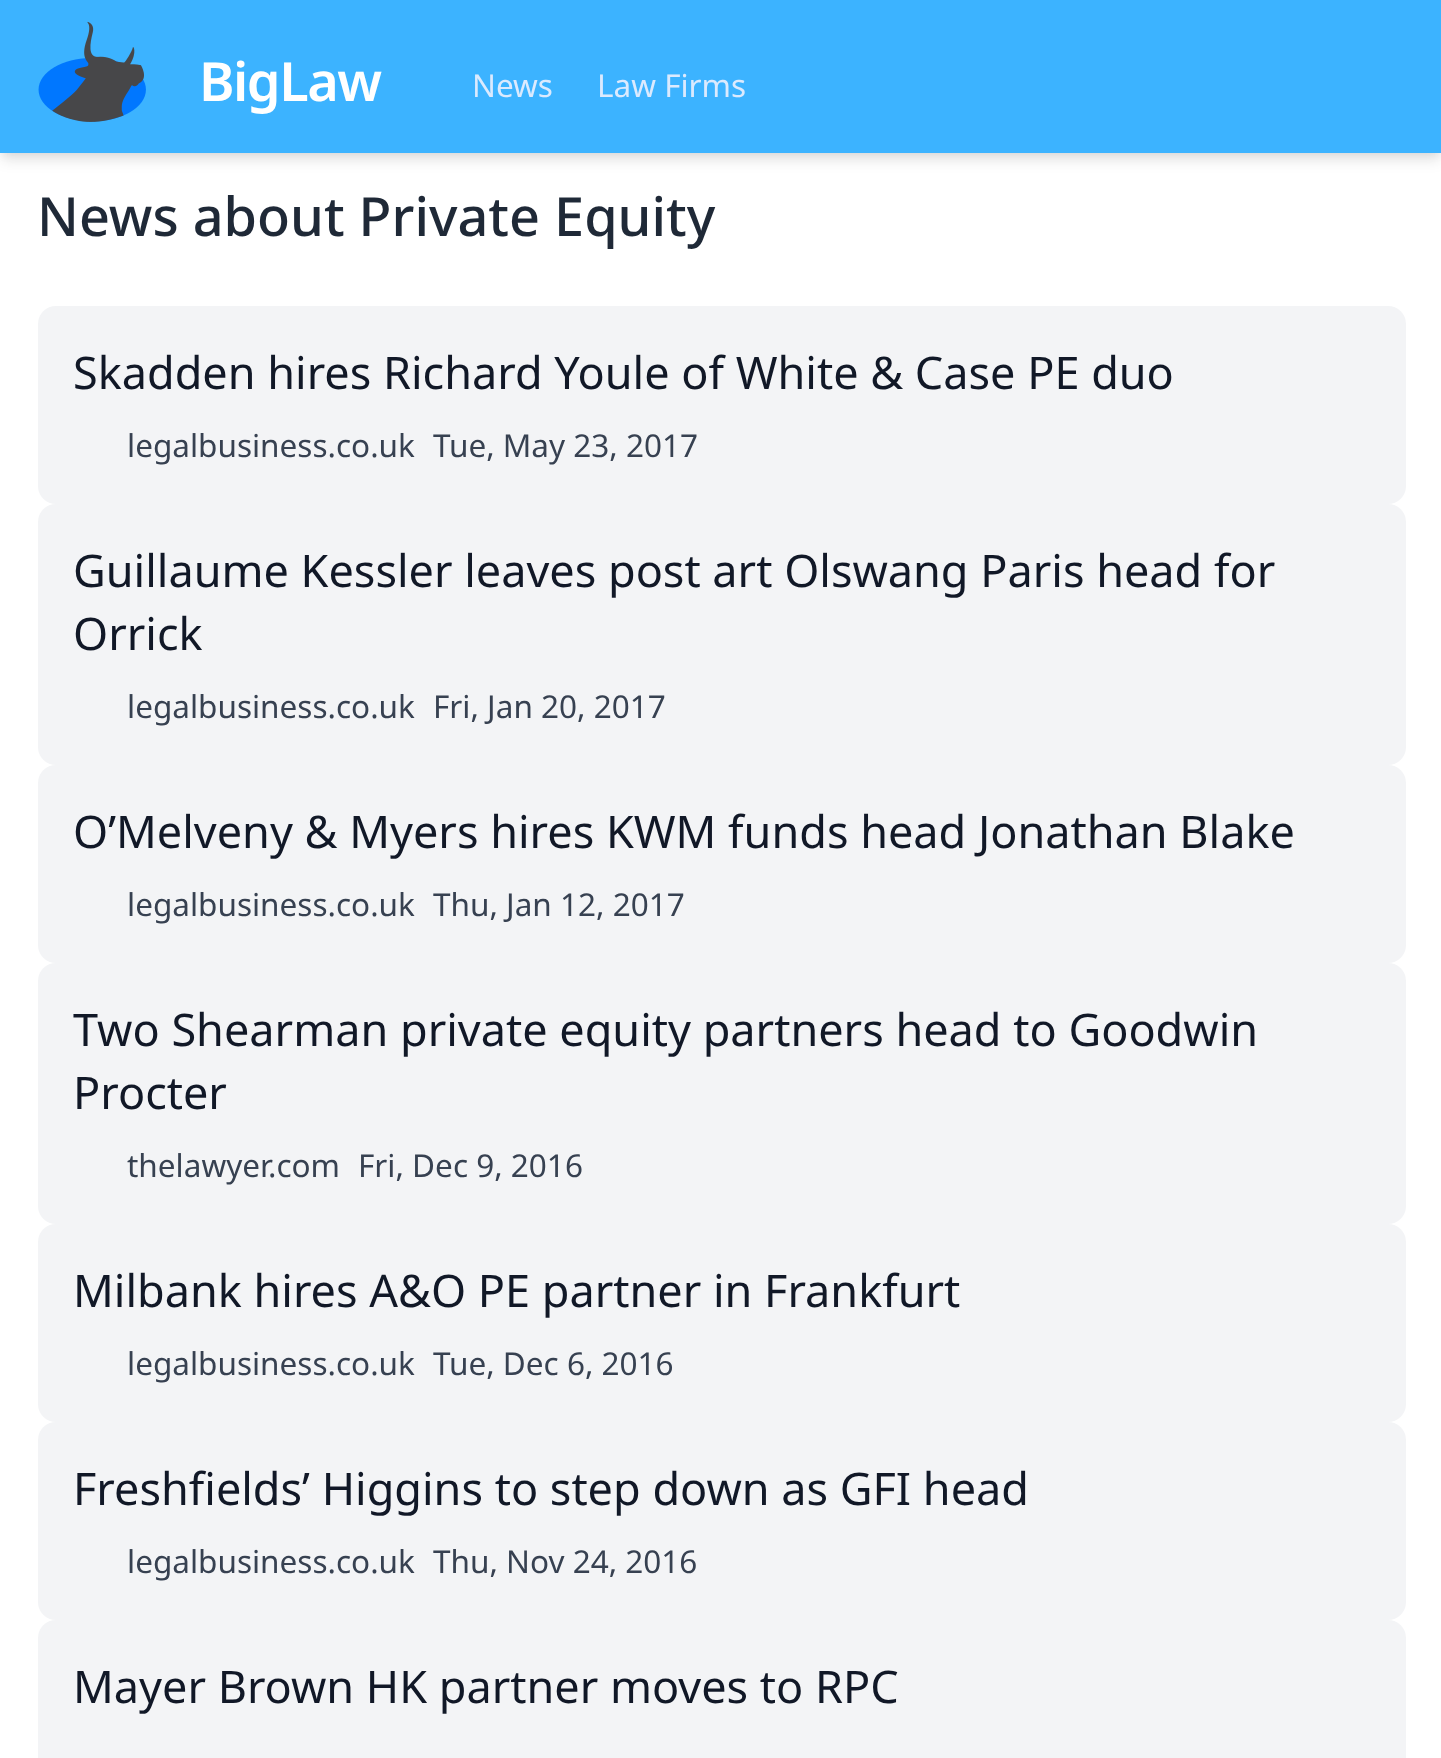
async function draw(canvas) {
	canvas.width = 1441;
	canvas.height = 1758;
	const c = canvas.getContext('2d');
	c.miterLimit = 4;
	c.fontKerning = 'normal';
	async function loadImage(src) {
		const img = new Image();
		img.src = src;
		await img.decode();
		return img;
	}

	c.fillStyle = '#fff';
	c.fillRect(0, 0, 1441, 1758);
	c.fillStyle = '#0000000f';
	c.filter = 'blur(4.5px)';
	c.beginPath();
	c.rect(2, 7, 1438, 148);
	c.fill();
	c.filter = 'none';
	c.fillStyle = '#0000001a';
	c.filter = 'blur(7px)';
	c.beginPath();
	c.rect(2, 11, 1438, 149);
	c.fill();
	c.filter = 'none';
	c.fillStyle = '#3cb3ff';
	c.fillRect(0, 0, 1441, 153);
	c.drawImage(await loadImage('img1.png'), 38, 21, 108, 101);
	c.letterSpacing = '-1.5px';
	c.font = '600 54px Noto Sans';
	c.fillStyle = '#fff';
	c.fillText('BigLaw', 199, 101);
	c.letterSpacing = '0px';
	c.font = '31.5px Noto Sans';
	c.fillStyle = '#dbeafe';
	c.fillText('News', 472, 97);
	c.fillText('Law Firms', 597, 97);
	c.font = '500 54px Noto Sans';
	c.fillStyle = '#1f2937';
	c.fillText('News about Private Equity', 37, 236);
	c.fillStyle = '#f3f4f6';
	c.beginPath();
	c.roundRect(38, 306, 1368, 198, 18);
	c.fill();
	c.font = '45px Noto Sans';
	c.fillStyle = '#111827';
	c.fillText('Skadden hires Richard Youle of White & Case PE duo', 73, 389);
	c.font = '31.5px Noto Sans';
	c.fillStyle = '#374151';
	c.fillText('legalbusiness.co.uk', 127, 457);
	c.fillText('Tue, May 23, 2017', 433, 457);
	c.fillStyle = '#f3f4f6';
	c.beginPath();
	c.roundRect(38, 504, 1368, 261, 18);
	c.fill();
	c.font = '45px Noto Sans';
	c.fillStyle = '#111827';
	c.fillText('Guillaume Kessler leaves post art Olswang Paris head for', 73, 587);
	c.fillText('Orrick', 73, 650);
	c.font = '31.5px Noto Sans';
	c.fillStyle = '#374151';
	c.fillText('legalbusiness.co.uk', 127, 718);
	c.fillText('Fri, Jan 20, 2017', 433, 718);
	c.fillStyle = '#f3f4f6';
	c.beginPath();
	c.roundRect(38, 765, 1368, 198, 18);
	c.fill();
	c.font = '45px Noto Sans';
	c.fillStyle = '#111827';
	c.fillText('O’Melveny & Myers hires KWM funds head Jonathan Blake', 73, 848);
	c.font = '31.5px Noto Sans';
	c.fillStyle = '#374151';
	c.fillText('legalbusiness.co.uk', 127, 916);
	c.fillText('Thu, Jan 12, 2017', 433, 916);
	c.fillStyle = '#f3f4f6';
	c.beginPath();
	c.roundRect(38, 963, 1368, 261, 18);
	c.fill();
	c.font = '45px Noto Sans';
	c.fillStyle = '#111827';
	c.fillText('Two Shearman private equity partners head to Goodwin', 73, 1046);
	c.fillText('Procter', 73, 1109);
	c.font = '31.5px Noto Sans';
	c.fillStyle = '#374151';
	c.fillText('thelawyer.com', 127, 1177);
	c.fillText('Fri, Dec 9, 2016', 358, 1177);
	c.fillStyle = '#f3f4f6';
	c.beginPath();
	c.roundRect(38, 1224, 1368, 198, 18);
	c.fill();
	c.font = '45px Noto Sans';
	c.fillStyle = '#111827';
	c.fillText('Milbank hires A&O PE partner in Frankfurt', 73, 1307);
	c.font = '31.5px Noto Sans';
	c.fillStyle = '#374151';
	c.fillText('legalbusiness.co.uk', 127, 1375);
	c.fillText('Tue, Dec 6, 2016', 433, 1375);
	c.fillStyle = '#f3f4f6';
	c.beginPath();
	c.roundRect(38, 1422, 1368, 198, 18);
	c.fill();
	c.font = '45px Noto Sans';
	c.fillStyle = '#111827';
	c.fillText('Freshfields’ Higgins to step down as GFI head', 73, 1505);
	c.font = '31.5px Noto Sans';
	c.fillStyle = '#374151';
	c.fillText('legalbusiness.co.uk', 127, 1573);
	c.fillText('Thu, Nov 24, 2016', 433, 1573);
	c.fillStyle = '#f3f4f6';
	c.beginPath();
	c.roundRect(38, 1620, 1368, 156, 18);
	c.fill();
	c.font = '45px Noto Sans';
	c.fillStyle = '#111827';
	c.fillText('Mayer Brown HK partner moves to RPC', 73, 1703);
}

draw(document.querySelector('canvas'));
